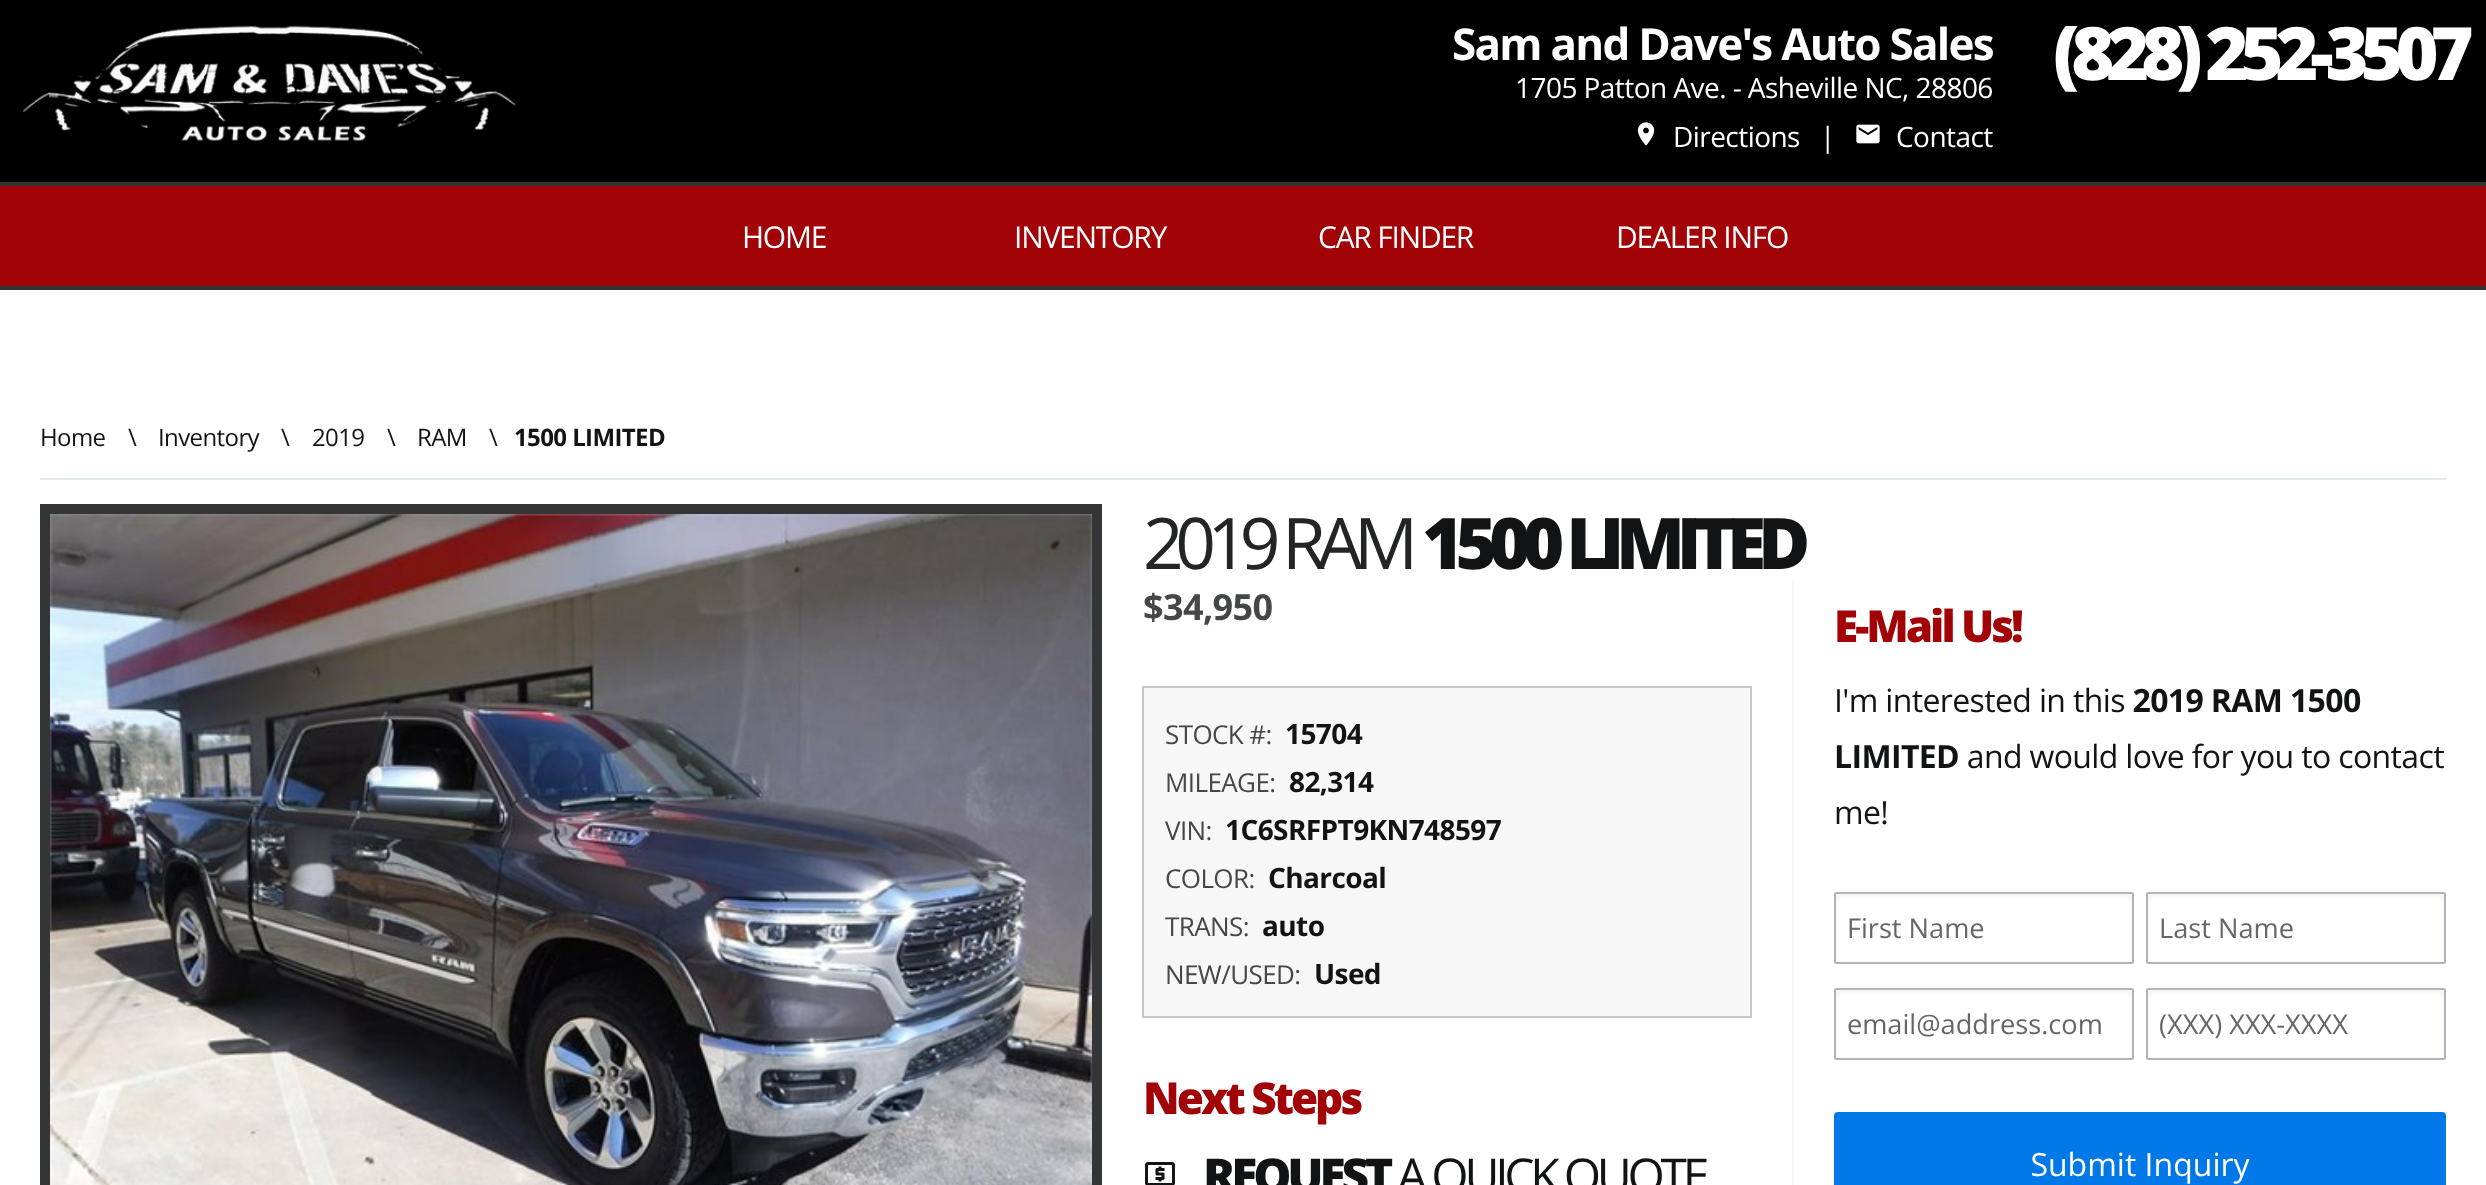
async function draw(canvas) {
	canvas.width = 2486;
	canvas.height = 1185;
	const c = canvas.getContext('2d');
	c.miterLimit = 4;
	c.fontKerning = 'normal';
	async function loadImage(src) {
		const img = new Image();
		img.src = src;
		await img.decode();
		return img;
	}

	c.fillStyle = '#000';
	c.fillRect(0, 0, 2486, 1185);
	c.drawImage(await loadImage('img1.png'), 22, 25, 494, 116);
	c.letterSpacing = '-1.75px';
	c.font = 'bold 44px Open Sans';
	c.fillStyle = '#fff';
	c.fillText('Sam and Dave\'s Auto Sales', 1452, 60);
	c.letterSpacing = '-0.55px';
	c.font = '28px Open Sans';
	c.fillText('1705 Patton Ave. - Asheville NC, 28806', 1515, 98);
	c.drawImage(await loadImage('img2.png'), 1637, 122, 18, 24);
	c.fillText('Directions', 1673, 147);
	c.fillText('|', 1820, 147);
	c.drawImage(await loadImage('img3.png'), 1856, 124, 24, 20);
	c.fillText('Contact', 1896, 147);
	c.letterSpacing = '-8.1px';
	c.font = '800 73.5px Open Sans';
	c.fillText('(828) 252-3507', 2053, 80);
	for (const [x, y, w, h, color] of [
		[0, 186, 2486, 100, '#a10307'],
		[0, 182, 2486, 4, '#333'],
		[0, 286, 2486, 4, '#333'],
	]) {
		c.fillStyle = color;
		c.fillRect(x, y, w, h);
	}
	c.letterSpacing = '-1.25px';
	c.font = '30px Open Sans';
	c.fillStyle = '#fff';
	for (const [text, x, y] of [
		['HOME', 742, 248],
		['INVENTORY', 1014, 248],
		['CAR FINDER', 1318, 248],
		['DEALER INFO', 1616, 248],
	]) {
		c.fillText(text, x, y);
	}
	c.fillRect(0, 290, 2486, 895);
	c.fillStyle = '#e4e8e8';
	c.fillRect(40, 478, 2406, 2);
	c.letterSpacing = '-0.6px';
	c.font = '24px Open Sans';
	c.fillStyle = '#121314';
	for (const [text, x, y] of [
		['Home', 40, 446],
		['\\', 128, 446],
		['Inventory', 158, 446],
		['\\', 281, 446],
		['2019', 312, 446],
		['\\', 387, 446],
		['RAM', 417, 446],
		['\\', 489, 446],
	]) {
		c.fillText(text, x, y);
	}
	c.font = 'bold 24px Open Sans';
	c.fillText('1500 LIMITED', 514, 446);
	c.fillStyle = '#343536';
	c.fillRect(40, 504, 1062, 681);
	c.drawImage(await loadImage('img4.png'), 50, 514, 1042, 671);
	c.letterSpacing = '-8.5px';
	c.font = '71.25px Open Sans';
	c.fillStyle = '#232425';
	c.fillText('2019 RAM', 1143, 569);
	c.letterSpacing = '-8.25px';
	c.font = '800 71.25px Open Sans';
	c.fillStyle = '#121314';
	c.fillText('1500 LIMITED', 1422, 569);
	c.fillStyle = '#f7f7f7';
	c.fillRect(1792, 580, 2, 605);
	c.letterSpacing = '-0.6px';
	c.font = 'bold 36px Open Sans';
	c.fillStyle = '#454647';
	c.fillText('$34,950', 1143, 620);
	c.fillStyle = '#f7f7f7';
	c.beginPath();
	c.rect(1143, 687, 608, 330);
	c.fill();
	c.strokeStyle = '#c6c6c6';
	c.lineWidth = 2;
	c.stroke();
	c.font = '26px Open Sans';
	c.fillStyle = '#454647';
	c.fillText('STOCK #:', 1165, 744);
	c.font = 'bold 28px Open Sans';
	c.fillStyle = '#121314';
	c.fillText('15704', 1285, 744);
	c.font = '26px Open Sans';
	c.fillStyle = '#454647';
	c.fillText('MILEAGE:', 1165, 792);
	c.font = 'bold 28px Open Sans';
	c.fillStyle = '#121314';
	c.fillText('82,314', 1289, 792);
	c.font = '26px Open Sans';
	c.fillStyle = '#454647';
	c.fillText('VIN:', 1165, 840);
	c.font = 'bold 28px Open Sans';
	c.fillStyle = '#121314';
	c.fillText('1C6SRFPT9KN748597', 1225, 840);
	c.font = '26px Open Sans';
	c.fillStyle = '#454647';
	c.fillText('COLOR:', 1165, 888);
	c.font = 'bold 28px Open Sans';
	c.fillStyle = '#121314';
	c.fillText('Charcoal', 1268, 888);
	c.font = '26px Open Sans';
	c.fillStyle = '#454647';
	c.fillText('TRANS:', 1165, 936);
	c.font = 'bold 28px Open Sans';
	c.fillStyle = '#121314';
	c.fillText('auto', 1262, 936);
	c.font = '26px Open Sans';
	c.fillStyle = '#454647';
	c.fillText('NEW/USED:', 1165, 984);
	c.font = 'bold 28px Open Sans';
	c.fillStyle = '#121314';
	c.fillText('Used', 1314, 984);
	c.letterSpacing = '-3px';
	c.font = '800 44px Open Sans';
	c.fillStyle = '#a10307';
	c.fillText('Next Steps', 1143, 1114);
	c.drawImage(await loadImage('img5.png'), 1145, 1162, 30, 23);
	c.letterSpacing = '-4.25px';
	c.font = '800 48px Open Sans';
	c.fillStyle = '#121314';
	c.fillText('REQUEST', 1203, 1193);
	c.font = '48px Open Sans';
	c.fillText('A QUICK QUOTE', 1397, 1193);
	c.letterSpacing = '-3px';
	c.font = '800 44px Open Sans';
	c.fillStyle = '#a10307';
	c.fillText('E-Mail Us!', 1834, 642);
	c.drawImage(await loadImage('img6.png'), 1834, 687, 612, 498);
}

draw(document.querySelector('canvas'));
